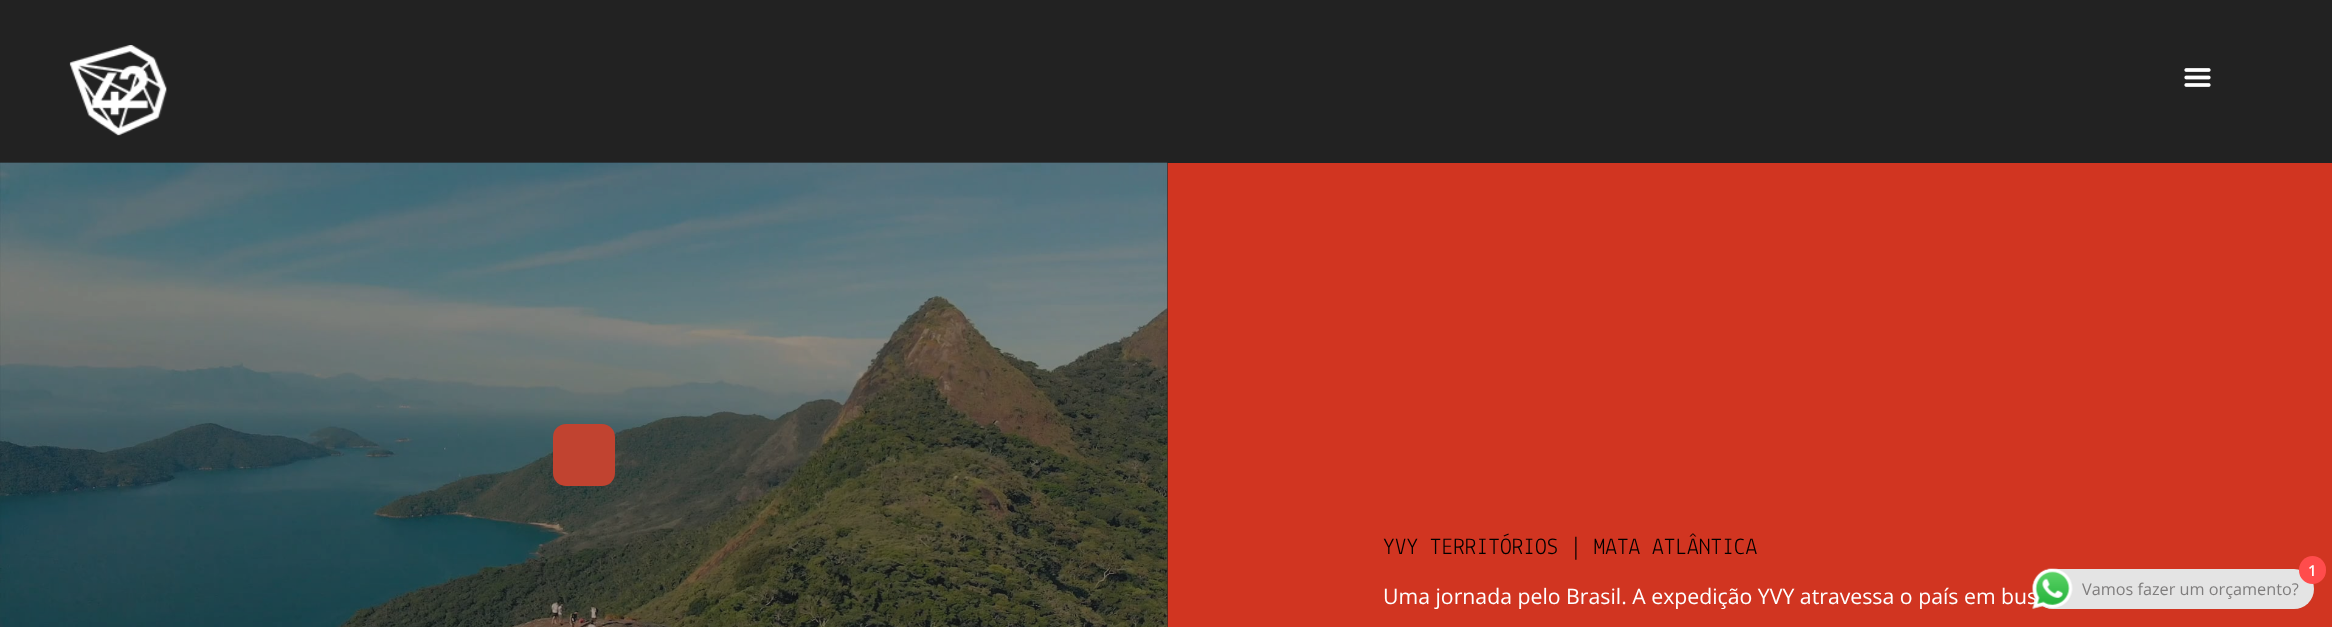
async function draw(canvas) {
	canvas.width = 2332;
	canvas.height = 627;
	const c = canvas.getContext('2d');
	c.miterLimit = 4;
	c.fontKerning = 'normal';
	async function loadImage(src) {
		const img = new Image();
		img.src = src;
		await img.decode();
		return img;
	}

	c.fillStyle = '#222';
	c.fillRect(0, 0, 2332, 627);
	c.drawImage(await loadImage('img1.png'), 69, 45, 98, 91);
	c.drawImage(await loadImage('img2.png'), 2184, 68, 27, 19);
	c.fillStyle = '#5a241e';
	c.fillRect(1167, 163, 1, 464);
	c.drawImage(await loadImage('img3.png'), 0, 162, 1168, 465);
	c.fillStyle = '#c14330';
	c.beginPath();
	c.roundRect(553, 424, 62, 62, 13);
	c.fill();
	c.fillStyle = '#d13521';
	c.fillRect(1168, 163, 1164, 464);
	c.font = '23.4px Lekton';
	c.fillStyle = '#000';
	c.fillText('YVY TERRITÓRIOS | MATA ATLÂNTICA', 1383, 554);
	c.font = '21.25px Open Sans';
	c.fillStyle = '#fff';
	c.fillText('Uma jornada pelo Brasil. A expedição YVY atravessa o país em bus', 1383, 604);
	c.fillStyle = '#e4e4e4';
	c.beginPath();
	c.roundRect(2033, 569, 281, 40, 20);
	c.fill();
	c.fillStyle = '#ff4c4c';
	c.beginPath();
	c.roundRect(2299, 556, 27, 28, 13.5);
	c.fill();
	c.font = '600 15px Open Sans';
	c.fillStyle = '#fff';
	c.fillText('1', 2308, 576);
	c.drawImage(await loadImage('img4.png'), 2032, 568, 41, 41);
	c.font = '16.25px Open Sans';
	c.fillStyle = '#7f7d7d';
	c.fillText('Vamos fazer um orçamento?', 2082, 595);
}

draw(document.querySelector('canvas'));
